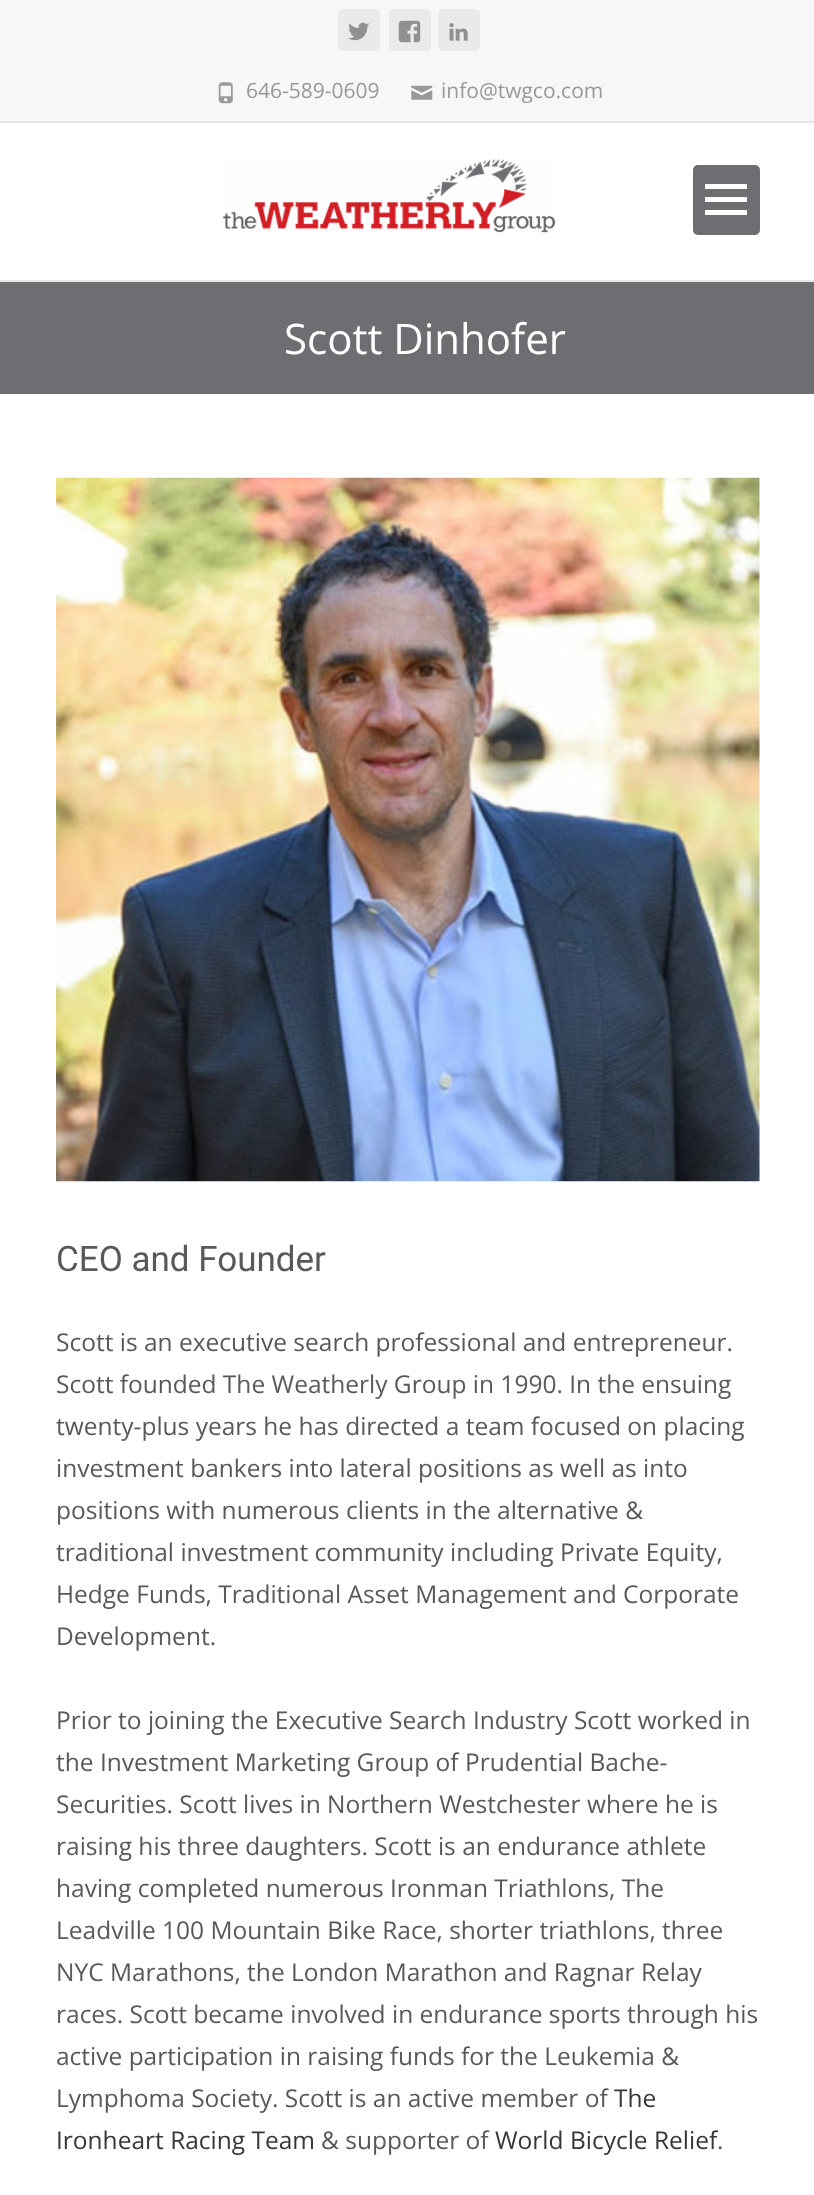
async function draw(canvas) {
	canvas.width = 814;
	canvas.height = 2195;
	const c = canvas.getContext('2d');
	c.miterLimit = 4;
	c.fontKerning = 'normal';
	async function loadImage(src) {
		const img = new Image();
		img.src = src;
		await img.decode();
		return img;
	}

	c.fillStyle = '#fff';
	c.fillRect(0, 0, 814, 2195);
	for (const [x, y, w, h, color] of [
		[0, 280, 814, 2, '#e7e7e7'],
		[0, 0, 814, 121, '#f7f7f7'],
		[0, 121, 814, 2, '#e7e7e7'],
	]) {
		c.fillStyle = color;
		c.fillRect(x, y, w, h);
	}
	c.fillStyle = '#eaeaea';
	c.beginPath();
	c.roundRect(338, 9, 42, 42, 5);
	c.fill();
	c.drawImage(await loadImage('img1.png'), 348, 22, 22, 19);
	c.beginPath();
	c.roundRect(389, 9, 42, 42, 5);
	c.fill();
	c.drawImage(await loadImage('img2.png'), 398, 20, 23, 23);
	c.beginPath();
	c.roundRect(438, 9, 42, 42, 5);
	c.fill();
	c.drawImage(await loadImage('img3.png'), 449, 23, 19, 18);
	c.drawImage(await loadImage('img4.png'), 218, 82, 15, 22);
	c.font = '21px Open Sans';
	c.fillStyle = '#999';
	c.fillText('646-589-0609', 246, 98);
	c.drawImage(await loadImage('img5.png'), 411, 85, 22, 15);
	c.fillText('info@twgco.com', 441, 98);
	c.drawImage(await loadImage('img6.png'), 223, 159, 333, 74);
	c.fillStyle = '#6d6e71';
	c.beginPath();
	c.roundRect(693, 165, 67, 70, 5);
	c.fill();
	c.fillStyle = '#fff';
	c.beginPath();
	c.moveTo(705, 215);
	c.lineTo(705, 210);
	c.lineTo(747, 210);
	c.lineTo(747, 215);
	c.closePath();
	c.moveTo(705, 184);
	c.lineTo(747, 184);
	c.lineTo(747, 189);
	c.lineTo(705, 189);
	c.closePath();
	c.moveTo(705, 202);
	c.lineTo(705, 197);
	c.lineTo(747, 197);
	c.lineTo(747, 202);
	c.closePath();
	c.fill();
	c.fillStyle = '#6d6e71';
	c.fillRect(0, 282, 814, 112);
	c.font = '42px Open Sans';
	c.fillStyle = '#fff';
	c.fillText('Scott Dinhofer', 284, 354);
	c.drawImage(await loadImage('img7.png'), 56, 477, 704, 705);
	c.font = '35px Roboto';
	c.fillStyle = '#58595b';
	c.fillText('CEO and Founder', 56, 1271);
	c.font = '24.5px Open Sans';
	for (const [text, x, y] of [
		['Scott is an executive search professional and entrepreneur.', 56, 1351],
		['Scott founded The Weatherly Group in 1990. In the ensuing', 56, 1393],
		['twenty-plus years he has directed a team focused on placing', 56, 1435],
		['investment bankers into lateral positions as well as into', 56, 1477],
		['positions with numerous clients in the alternative &', 56, 1519],
		['traditional investment community including Private Equity,', 56, 1561],
		['Hedge Funds, Traditional Asset Management and Corporate', 56, 1603],
		['Development.', 56, 1645],
		['Prior to joining the Executive Search Industry Scott worked in', 56, 1729],
		['the Investment Marketing Group of Prudential Bache-', 56, 1771],
		['Securities. Scott lives in Northern Westchester where he is', 56, 1813],
		['raising his three daughters. Scott is an endurance athlete', 56, 1855],
		['having completed numerous Ironman Triathlons, The', 56, 1897],
		['Leadville 100 Mountain Bike Race, shorter triathlons, three', 56, 1939],
		['NYC Marathons, the London Marathon and Ragnar Relay', 56, 1981],
		['races. Scott became involved in endurance sports through his', 56, 2023],
		['active participation in raising funds for the Leukemia &', 56, 2065],
		['Lymphoma Society. Scott is an active member of', 56, 2107],
	]) {
		c.fillText(text, x, y);
	}
	c.fillStyle = '#373737';
	c.fillText('The', 614, 2107);
	c.fillText('Ironheart Racing Team', 56, 2149);
	c.fillStyle = '#58595b';
	c.fillText('& supporter of', 321, 2149);
	c.fillStyle = '#373737';
	c.fillText('World Bicycle Relief', 495, 2149);
	c.fillStyle = '#58595b';
	c.fillText('.', 717, 2149);
}

draw(document.querySelector('canvas'));
